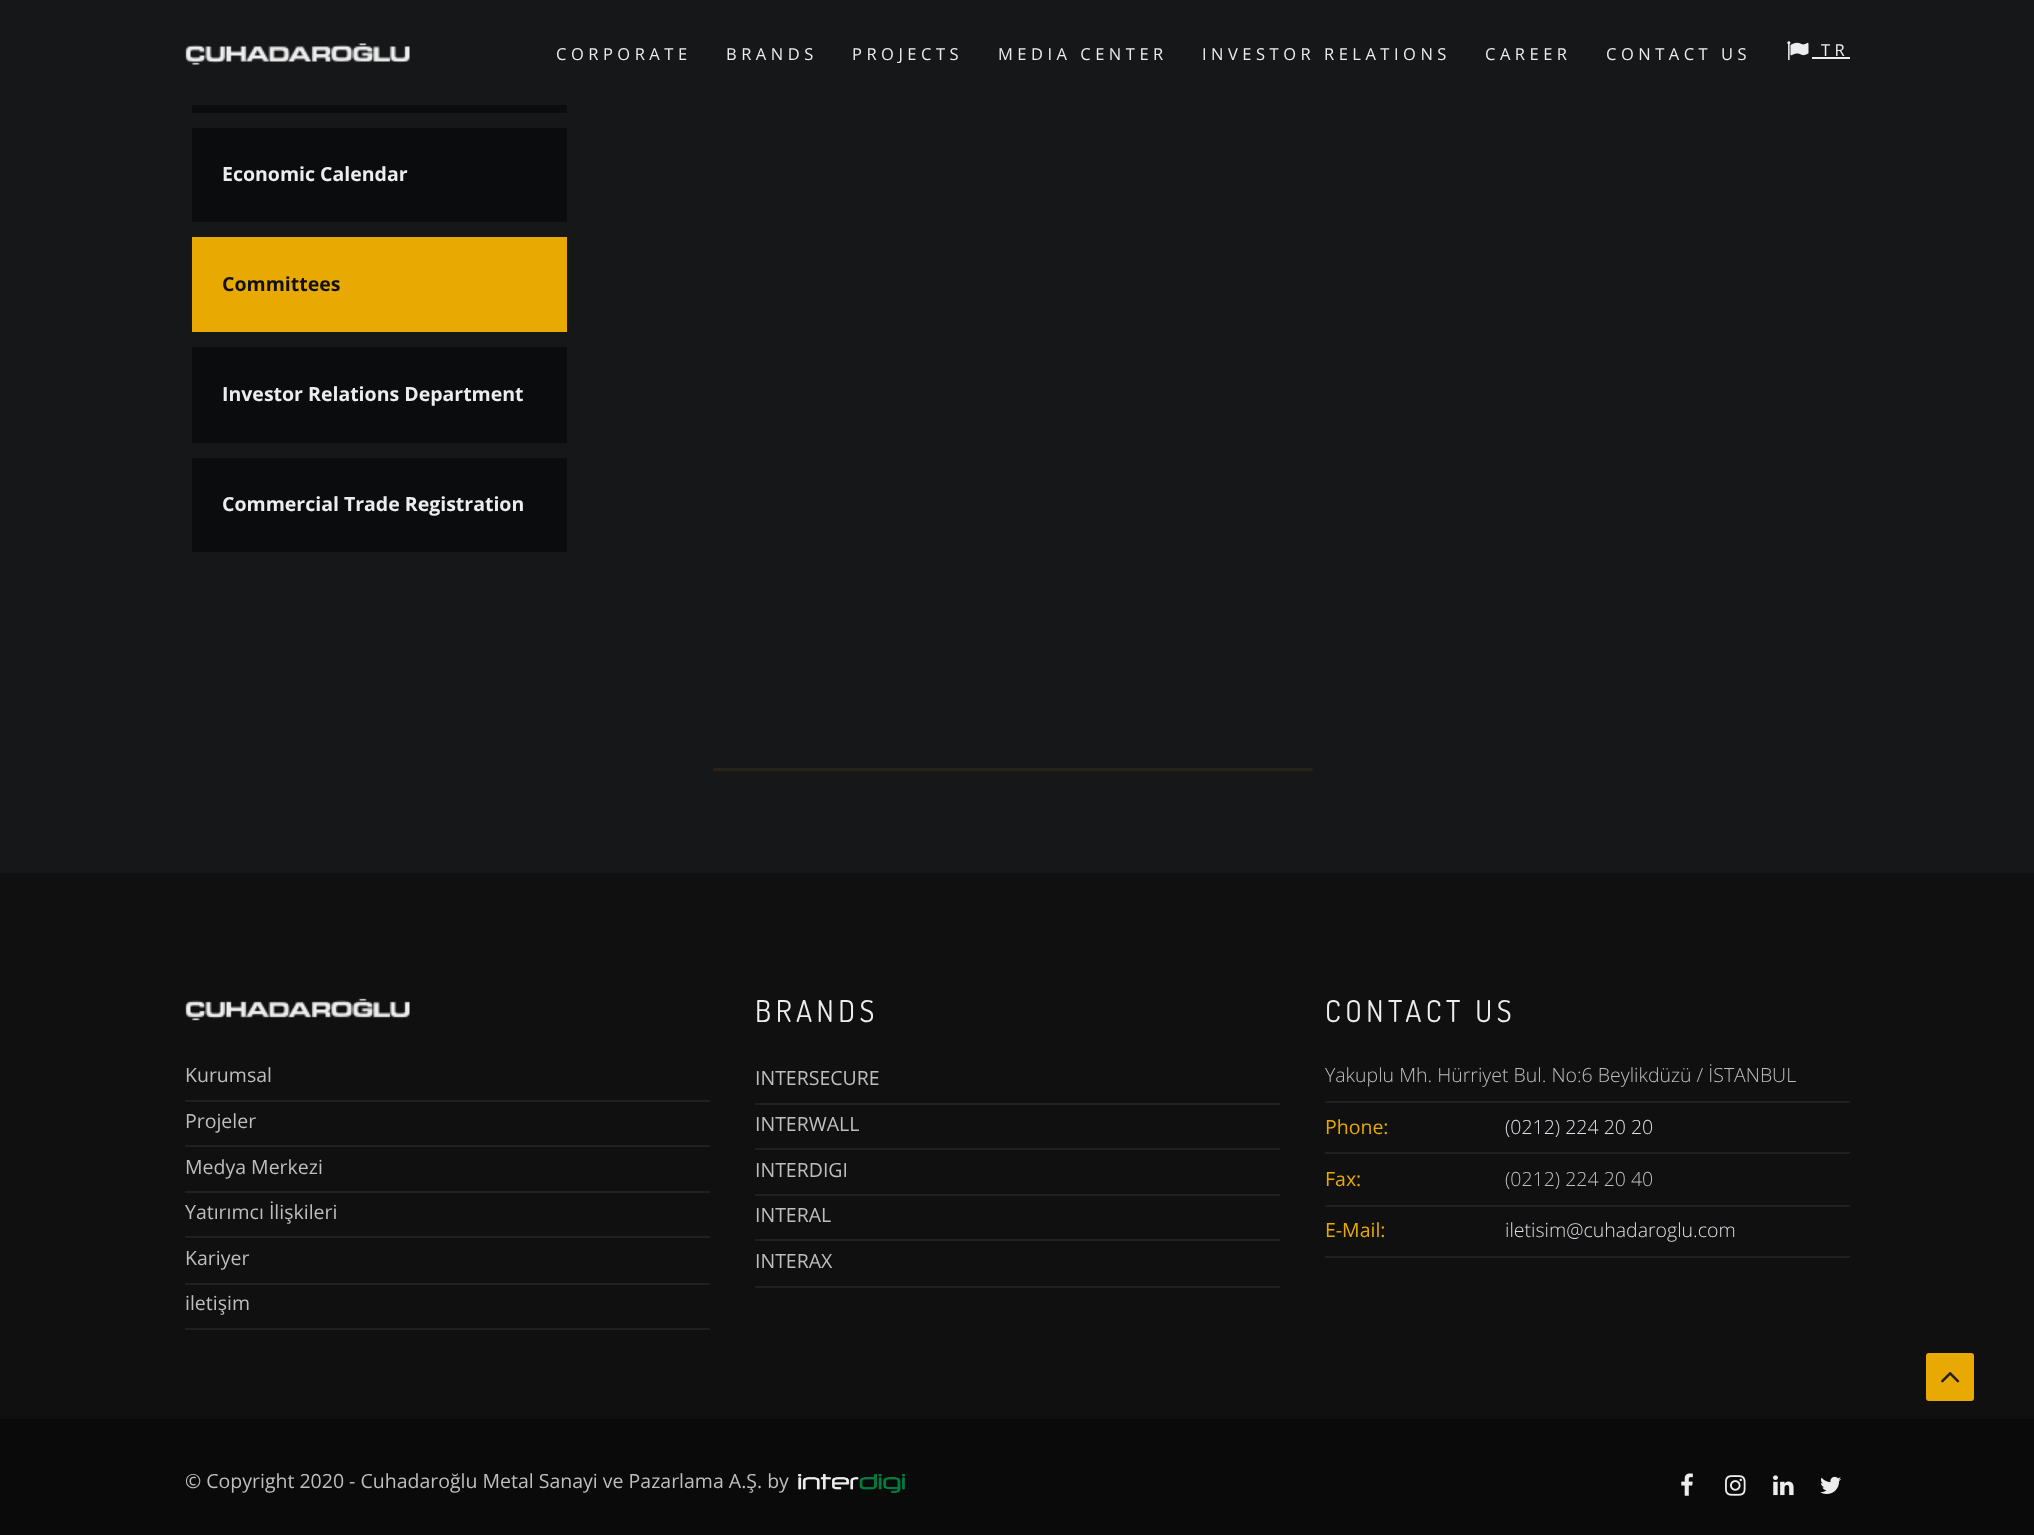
async function draw(canvas) {
	canvas.width = 2034;
	canvas.height = 1535;
	const c = canvas.getContext('2d');
	c.miterLimit = 4;
	c.fontKerning = 'normal';
	async function loadImage(src) {
		const img = new Image();
		img.src = src;
		await img.decode();
		return img;
	}

	c.fillStyle = '#161719';
	c.fillRect(0, 0, 2034, 1535);
	c.drawImage(await loadImage('img1.png'), 185, 43, 225, 22);
	c.letterSpacing = '4.5px';
	c.font = '16.5px Open Sans';
	c.fillStyle = '#ededed';
	for (const [text, x, y] of [
		['CORPORATE', 556, 60],
		['BRANDS', 726, 60],
		['PROJECTS', 852, 60],
		['MEDIA CENTER', 998, 60],
		['INVESTOR RELATIONS', 1202, 60],
		['CAREER', 1485, 60],
		['CONTACT US', 1606, 60],
	]) {
		c.fillText(text, x, y);
	}
	c.drawImage(await loadImage('img2.png'), 1787, 41, 22, 20);
	c.fillText('TR', 1821, 56);
	for (const [x, y, w, h, color] of [
		[1812, 57, 38, 2, '#ededed'],
		[192, 105, 375, 8, '#0b0c0d'],
		[192, 128, 375, 94, '#0b0c0d'],
	]) {
		c.fillStyle = color;
		c.fillRect(x, y, w, h);
	}
	c.letterSpacing = '0px';
	c.font = 'bold 19.5px Open Sans';
	c.fillStyle = '#ededed';
	c.fillText('Economic Calendar', 222, 181);
	c.fillStyle = '#e8aa02';
	c.fillRect(192, 237, 375, 95);
	c.fillStyle = '#101010';
	c.fillText('Committees', 222, 291);
	c.fillStyle = '#0b0c0d';
	c.fillRect(192, 347, 375, 96);
	c.fillStyle = '#ededed';
	c.fillText('Investor Relations Department', 222, 401);
	c.fillStyle = '#0b0c0d';
	c.fillRect(192, 458, 375, 94);
	c.fillStyle = '#ededed';
	c.fillText('Commercial Trade Registration', 222, 511);
	c.fillStyle = '#101010';
	c.fillRect(0, 873, 2034, 546);
	c.drawImage(await loadImage('img3.png'), 185, 998, 225, 23);
	c.fillStyle = '#202020';
	c.fillRect(185, 1100, 525, 2);
	c.font = '19.5px Open Sans';
	c.fillStyle = '#bebebe';
	c.fillText('Kurumsal', 185, 1082);
	c.fillStyle = '#202020';
	c.fillRect(185, 1145, 525, 2);
	c.fillStyle = '#bebebe';
	c.fillText('Projeler', 185, 1128);
	c.fillStyle = '#202020';
	c.fillRect(185, 1191, 525, 2);
	c.fillStyle = '#bebebe';
	c.fillText('Medya Merkezi', 185, 1174);
	c.fillStyle = '#202020';
	c.fillRect(185, 1236, 525, 2);
	c.fillStyle = '#bebebe';
	c.fillText('Yatırımcı İlişkileri', 185, 1219);
	c.fillStyle = '#202020';
	c.fillRect(185, 1283, 525, 2);
	c.fillStyle = '#bebebe';
	c.fillText('Kariyer', 185, 1265);
	c.fillStyle = '#202020';
	c.fillRect(185, 1328, 525, 2);
	c.fillStyle = '#bebebe';
	c.fillText('iletişim', 185, 1310);
	c.letterSpacing = '4.5px';
	c.font = '30px Dosis';
	c.fillStyle = '#ededed';
	c.fillText('BRANDS', 755, 1022);
	c.fillStyle = '#202020';
	c.fillRect(755, 1103, 525, 2);
	c.letterSpacing = '0px';
	c.font = '19.5px Open Sans';
	c.fillStyle = '#bebebe';
	c.fillText('INTERSECURE', 755, 1085);
	c.fillStyle = '#202020';
	c.fillRect(755, 1148, 525, 2);
	c.fillStyle = '#bebebe';
	c.fillText('INTERWALL', 755, 1131);
	c.fillStyle = '#202020';
	c.fillRect(755, 1194, 525, 2);
	c.fillStyle = '#bebebe';
	c.fillText('INTERDIGI', 755, 1177);
	c.fillStyle = '#202020';
	c.fillRect(755, 1239, 525, 2);
	c.fillStyle = '#bebebe';
	c.fillText('INTERAL', 755, 1222);
	c.fillStyle = '#202020';
	c.fillRect(755, 1286, 525, 2);
	c.fillStyle = '#bebebe';
	c.fillText('INTERAX', 755, 1268);
	c.letterSpacing = '4.5px';
	c.font = '30px Dosis';
	c.fillStyle = '#ededed';
	c.fillText('CONTACT US', 1325, 1022);
	c.fillStyle = '#202020';
	c.fillRect(1325, 1101, 525, 2);
	c.letterSpacing = '0px';
	c.font = '300 19.5px Open Sans';
	c.fillStyle = '#bebebe';
	c.fillText('Yakuplu Mh. Hürriyet Bul. No:6 Beylikdüzü / İSTANBUL', 1325, 1082);
	c.fillStyle = '#202020';
	c.fillRect(1325, 1152, 525, 2);
	c.font = '19.5px Open Sans';
	c.fillStyle = '#e8aa02';
	c.fillText('Phone:', 1325, 1134);
	c.font = '300 19.5px Open Sans';
	c.fillStyle = '#dbdee2';
	c.fillText('(0212) 224 20 20', 1505, 1134);
	c.fillStyle = '#202020';
	c.fillRect(1325, 1205, 525, 2);
	c.font = '19.5px Open Sans';
	c.fillStyle = '#e8aa02';
	c.fillText('Fax:', 1325, 1186);
	c.font = '300 19.5px Open Sans';
	c.fillStyle = '#bebebe';
	c.fillText('(0212) 224 20 40', 1505, 1186);
	c.fillStyle = '#202020';
	c.fillRect(1325, 1256, 525, 2);
	c.font = '19.5px Open Sans';
	c.fillStyle = '#e8aa02';
	c.fillText('E-Mail:', 1325, 1237);
	c.font = '300 19.5px Open Sans';
	c.fillStyle = '#dbdee2';
	c.fillText('iletisim@cuhadaroglu.com', 1505, 1237);
	c.fillStyle = '#e8aa02';
	c.beginPath();
	c.roundRect(1926, 1353, 48, 48, 3);
	c.fill();
	c.drawImage(await loadImage('img4.png'), 1941, 1371, 19, 12);
	c.fillStyle = '#0a0a0a';
	c.fillRect(0, 1419, 2034, 116);
	c.font = '19.5px Open Sans';
	c.fillStyle = '#bebebe';
	c.fillText('© Copyright 2020 - Cuhadaroğlu Metal Sanayi ve Pazarlama A.Ş. by', 185, 1488);
	c.drawImage(await loadImage('img5.png'), 798, 1474, 108, 19);
	c.drawImage(await loadImage('img6.png'), 1681, 1473, 12, 23);
	c.drawImage(await loadImage('img7.png'), 1725, 1475, 21, 21);
	c.drawImage(await loadImage('img8.png'), 1773, 1475, 21, 21);
	c.drawImage(await loadImage('img9.png'), 1820, 1476, 21, 18);
	c.fillStyle = '#282419';
	c.beginPath();
	c.roundRect(713, 768, 600, 3, 1.5);
	c.fill();
}

draw(document.querySelector('canvas'));
